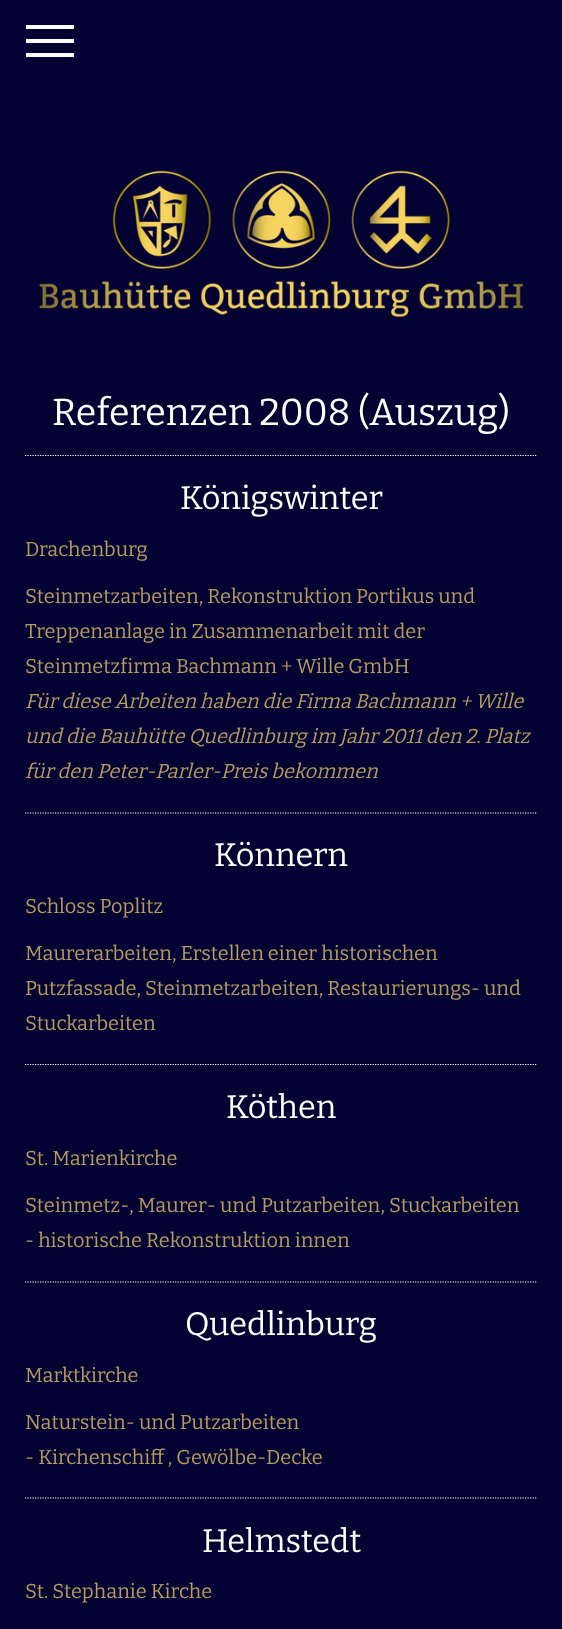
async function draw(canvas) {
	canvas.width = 562;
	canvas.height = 1629;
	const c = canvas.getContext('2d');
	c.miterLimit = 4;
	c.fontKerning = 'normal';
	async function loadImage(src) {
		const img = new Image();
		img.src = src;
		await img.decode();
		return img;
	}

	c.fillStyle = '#040232';
	c.fillRect(0, 0, 562, 1629);
	for (const [x, y, w, h, color] of [
		[26, 39, 48, 4, '#fff'],
		[26, 25, 48, 4, '#fff'],
		[26, 53, 48, 4, '#fff'],
	]) {
		c.fillStyle = color;
		c.fillRect(x, y, w, h);
	}
	c.drawImage(await loadImage('img1.png'), 39, 170, 485, 147);
	c.font = '100 37.5px Bitter';
	c.fillStyle = '#fffffc';
	c.fillText('Referenzen 2008 (Auszug)', 52, 425);
	c.beginPath();
	c.moveTo(25, 455.5);
	c.lineTo(537.5, 455.5);
	c.strokeStyle = '#fffffc';
	c.lineWidth = 1.2;
	c.setLineDash([1.25, 1.25]);
	c.stroke();
	c.font = '100 32.5px Bitter';
	c.fillText('Königswinter', 180, 509);
	c.font = '100 20px Bitter';
	c.fillStyle = '#b59d5f';
	for (const [text, x, y] of [
		['Drachenburg', 25, 556],
		['Steinmetzarbeiten, Rekonstruktion Portikus und', 25, 603],
		['Treppenanlage in Zusammenarbeit mit der', 25, 638],
		['Steinmetzfirma Bachmann + Wille GmbH', 25, 673],
	]) {
		c.fillText(text, x, y);
	}
	c.font = 'italic 100 20px Bitter';
	for (const [text, x, y] of [
		['Für diese Arbeiten haben die Firma Bachmann + Wille', 25, 708],
		['und die Bauhütte Quedlinburg im Jahr 2011 den 2. Platz', 25, 743],
		['für den Peter-Parler-Preis bekommen', 25, 778],
	]) {
		c.fillText(text, x, y);
	}
	c.beginPath();
	c.moveTo(25, 813);
	c.lineTo(537.5, 813);
	c.stroke();
	c.font = '100 32.5px Bitter';
	c.fillStyle = '#fffffc';
	c.fillText('Könnern', 214, 866);
	c.font = '100 20px Bitter';
	c.fillStyle = '#b59d5f';
	for (const [text, x, y] of [
		['Schloss Poplitz', 25, 913],
		['Maurerarbeiten, Erstellen einer historischen', 25, 960],
		['Putzfassade, Steinmetzarbeiten, Restaurierungs- und', 25, 995],
		['Stuckarbeiten', 25, 1030],
	]) {
		c.fillText(text, x, y);
	}
	c.beginPath();
	c.moveTo(25, 1064.5);
	c.lineTo(537.5, 1064.5);
	c.stroke();
	c.font = '100 32.5px Bitter';
	c.fillStyle = '#fffffc';
	c.fillText('Köthen', 226, 1118);
	c.font = '100 20px Bitter';
	c.fillStyle = '#b59d5f';
	for (const [text, x, y] of [
		['St. Marienkirche', 25, 1165],
		['Steinmetz-, Maurer- und Putzarbeiten, Stuckarbeiten', 25, 1212],
		['- historische Rekonstruktion innen', 25, 1247],
	]) {
		c.fillText(text, x, y);
	}
	c.beginPath();
	c.moveTo(25, 1282);
	c.lineTo(537.5, 1282);
	c.stroke();
	c.font = '100 32.5px Bitter';
	c.fillStyle = '#fffffc';
	c.fillText('Quedlinburg', 185, 1335);
	c.font = '100 20px Bitter';
	c.fillStyle = '#b59d5f';
	for (const [text, x, y] of [
		['Marktkirche', 25, 1382],
		['Naturstein- und Putzarbeiten', 25, 1429],
		['- Kirchenschiff , Gewölbe-Decke', 25, 1464],
	]) {
		c.fillText(text, x, y);
	}
	c.beginPath();
	c.moveTo(25, 1498);
	c.lineTo(537.5, 1498);
	c.stroke();
	c.font = '100 32.5px Bitter';
	c.fillStyle = '#fffffc';
	c.fillText('Helmstedt', 202, 1552);
	c.font = '100 20px Bitter';
	c.fillStyle = '#b59d5f';
	c.fillText('St. Stephanie Kirche', 25, 1598);
}

draw(document.querySelector('canvas'));
